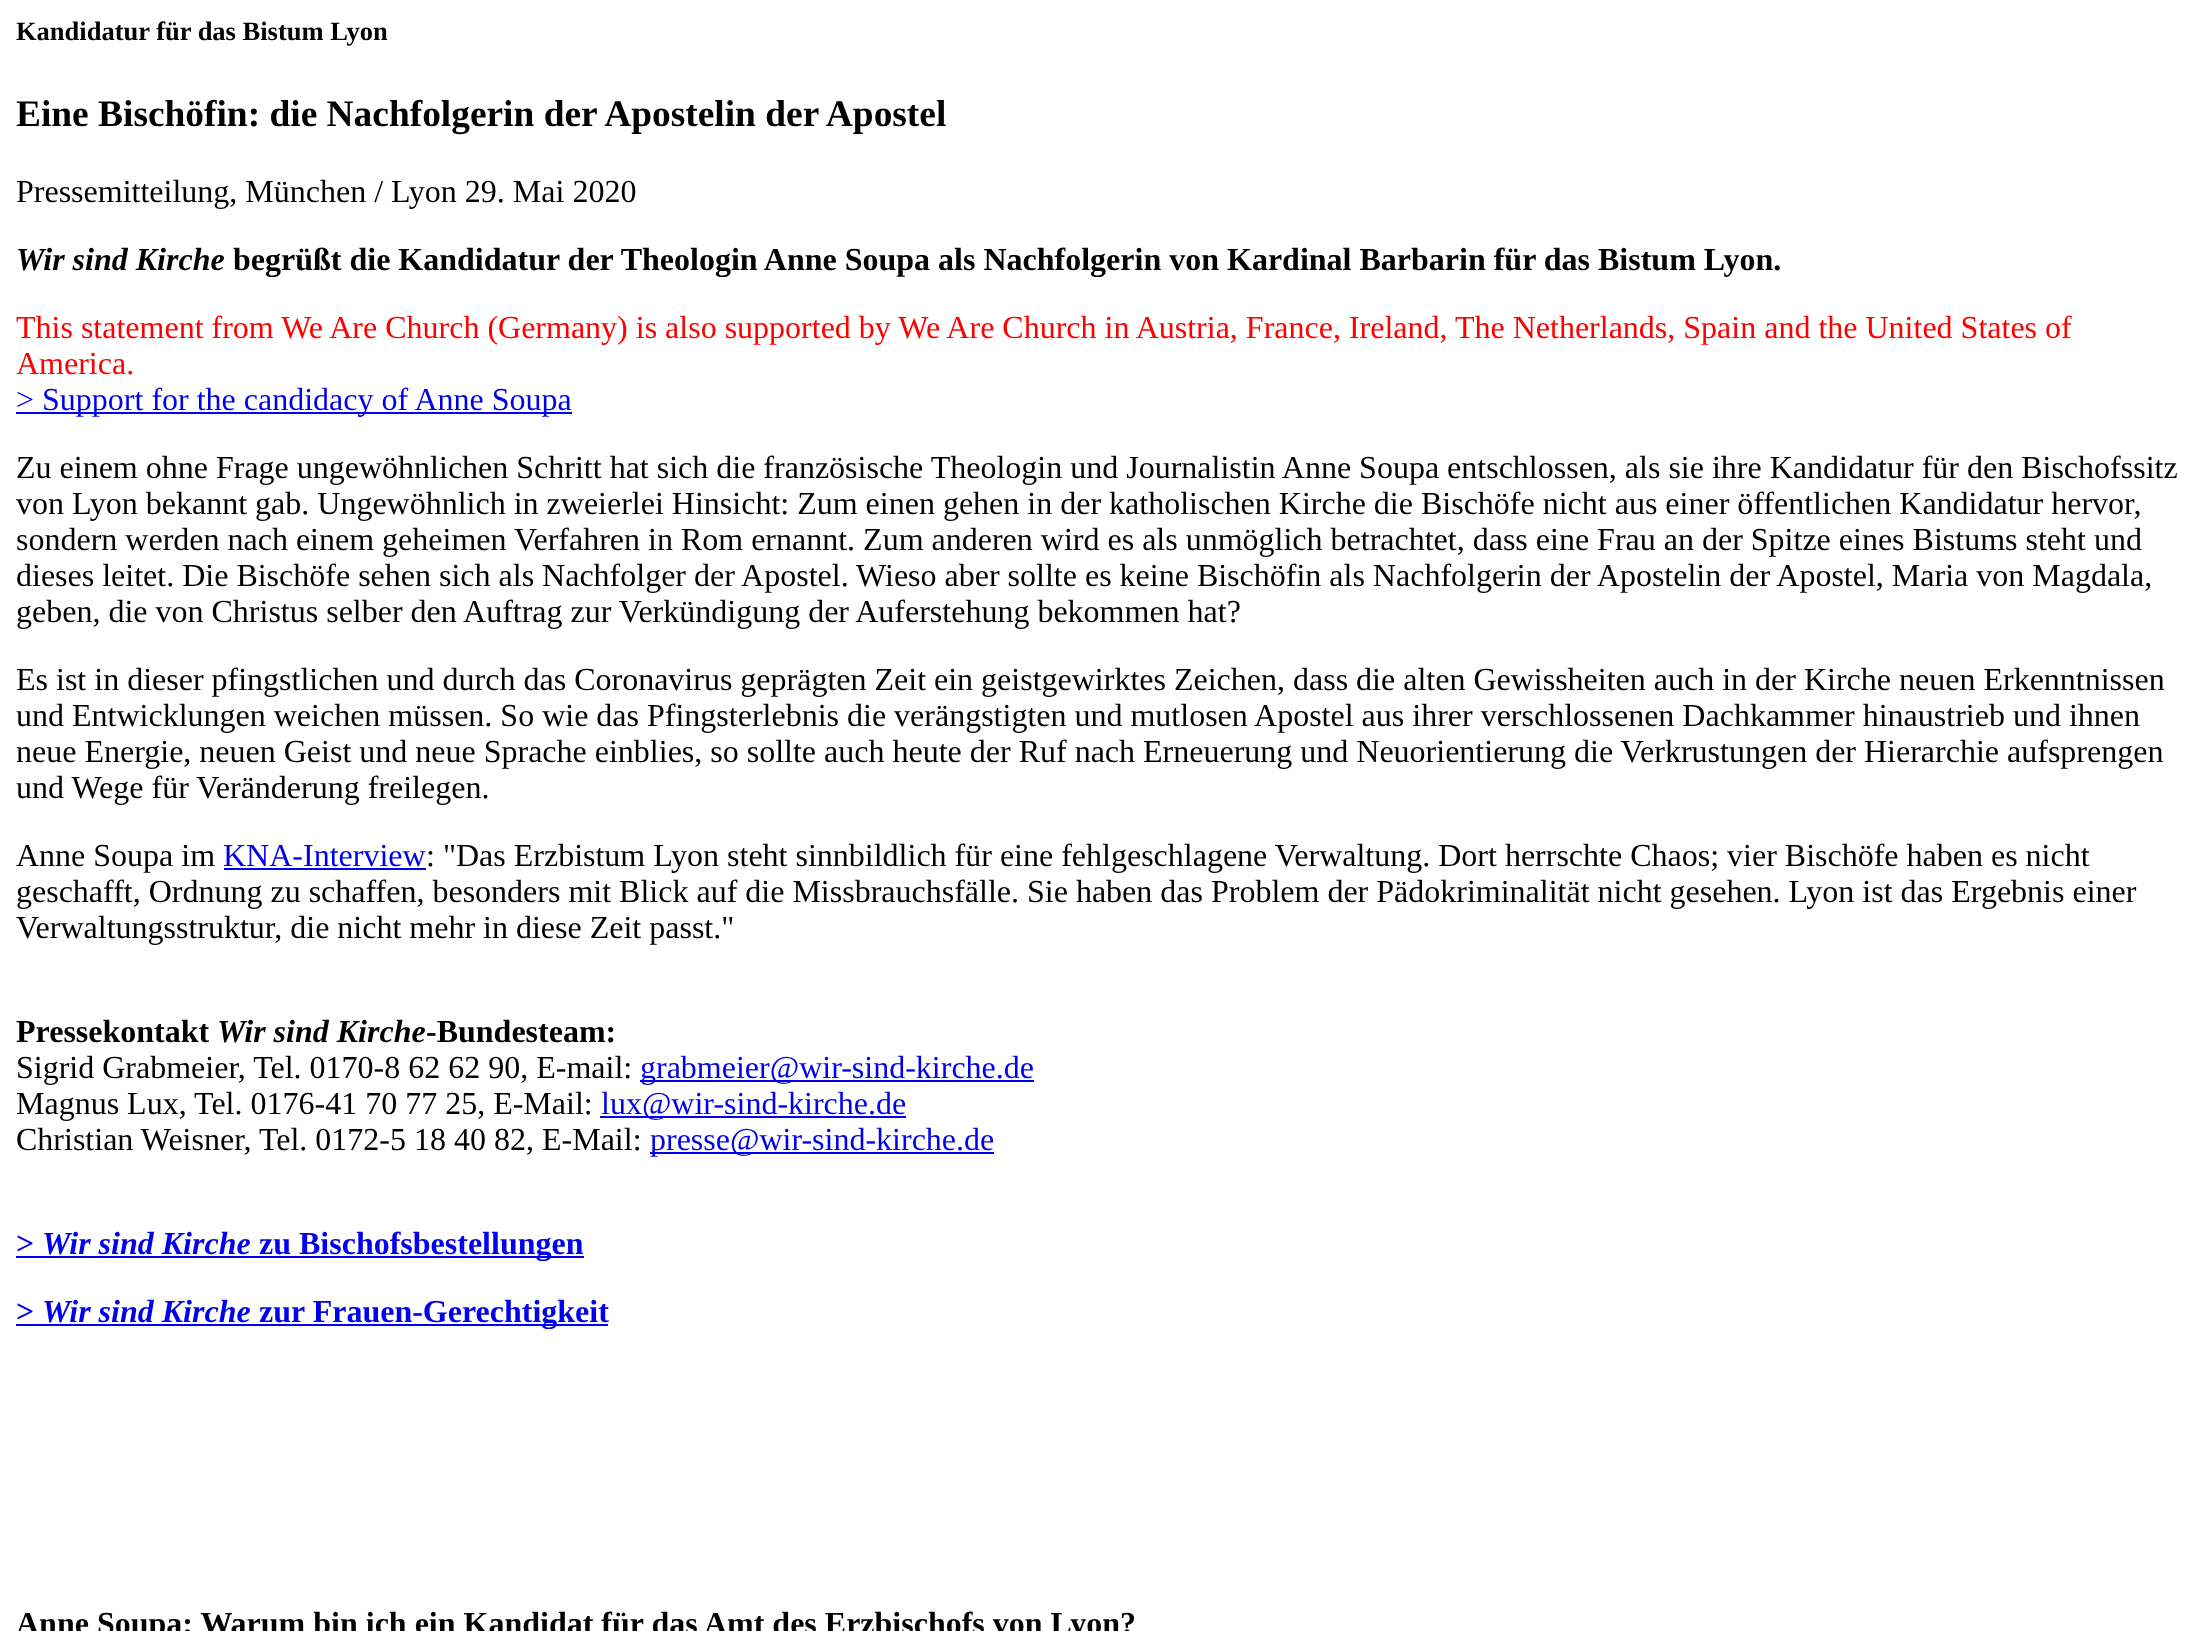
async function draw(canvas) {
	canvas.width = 2205;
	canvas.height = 1631;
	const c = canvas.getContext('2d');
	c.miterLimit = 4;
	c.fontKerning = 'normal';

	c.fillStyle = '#fff';
	c.fillRect(0, 0, 2205, 1631);
	c.font = 'bold 26.5px Liberation Serif';
	c.fillStyle = '#000';
	c.fillText('Kandidatur für das Bistum Lyon', 16, 40);
	c.font = 'bold 37.4px Liberation Serif';
	c.fillText('Eine Bischöfin: die Nachfolgerin der Apostelin der Apostel', 16, 126);
	c.font = '32px Liberation Serif';
	c.fillText('Pressemitteilung, München / Lyon 29. Mai 2020', 16, 202);
	c.font = 'italic bold 32px Liberation Serif';
	c.fillText('Wir sind Kirche', 16, 270);
	c.font = 'bold 32px Liberation Serif';
	c.fillText('begrüßt die Kandidatur der Theologin Anne Soupa als Nachfolgerin von Kardinal Barbarin für das Bistum Lyon.', 233, 270);
	c.font = '32px Liberation Serif';
	c.fillStyle = '#f00';
	c.fillText('This statement from We Are Church (Germany) is also supported by We Are Church in Austria, France, Ireland, The Netherlands, Spain and the United States of', 16, 338);
	c.fillText('America.', 16, 374);
	c.fillStyle = '#00e';
	c.fillRect(16, 412, 556, 2);
	c.fillText('> Support for the candidacy of Anne Soupa', 16, 410);
	c.fillStyle = '#000';
	for (const [text, x, y] of [
		['Zu einem ohne Frage ungewöhnlichen Schritt hat sich die französische Theologin und Journalistin Anne Soupa entschlossen, als sie ihre Kandidatur für den Bischofssitz', 16, 478],
		['von Lyon bekannt gab. Ungewöhnlich in zweierlei Hinsicht: Zum einen gehen in der katholischen Kirche die Bischöfe nicht aus einer öffentlichen Kandidatur hervor,', 16, 514],
		['sondern werden nach einem geheimen Verfahren in Rom ernannt. Zum anderen wird es als unmöglich betrachtet, dass eine Frau an der Spitze eines Bistums steht und', 16, 550],
		['dieses leitet. Die Bischöfe sehen sich als Nachfolger der Apostel. Wieso aber sollte es keine Bischöfin als Nachfolgerin der Apostelin der Apostel, Maria von Magdala,', 16, 586],
		['geben, die von Christus selber den Auftrag zur Verkündigung der Auferstehung bekommen hat?', 16, 622],
		['Es ist in dieser pfingstlichen und durch das Coronavirus geprägten Zeit ein geistgewirktes Zeichen, dass die alten Gewissheiten auch in der Kirche neuen Erkenntnissen', 16, 690],
		['und Entwicklungen weichen müssen. So wie das Pfingsterlebnis die verängstigten und mutlosen Apostel aus ihrer verschlossenen Dachkammer hinaustrieb und ihnen', 16, 726],
		['neue Energie, neuen Geist und neue Sprache einblies, so sollte auch heute der Ruf nach Erneuerung und Neuorientierung die Verkrustungen der Hierarchie aufsprengen', 16, 762],
		['und Wege für Veränderung freilegen.', 16, 798],
		['Anne Soupa im', 16, 866],
	]) {
		c.fillText(text, x, y);
	}
	c.fillStyle = '#00e';
	c.fillText('KNA-Interview', 223, 866);
	c.fillRect(224, 868, 202, 2);
	c.fillStyle = '#000';
	for (const [text, x, y] of [
		[': "Das Erzbistum Lyon steht sinnbildlich für eine fehlgeschlagene Verwaltung. Dort herrschte Chaos; vier Bischöfe haben es nicht', 426, 866],
		['geschafft, Ordnung zu schaffen, besonders mit Blick auf die Missbrauchsfälle. Sie haben das Problem der Pädokriminalität nicht gesehen. Lyon ist das Ergebnis einer', 16, 902],
		['Verwaltungsstruktur, die nicht mehr in diese Zeit passt."', 16, 938],
	]) {
		c.fillText(text, x, y);
	}
	c.font = 'bold 32px Liberation Serif';
	c.fillText('Pressekontakt', 16, 1042);
	c.font = 'italic bold 32px Liberation Serif';
	c.fillText('Wir sind Kirche', 217, 1042);
	c.font = 'bold 32px Liberation Serif';
	c.fillText('-Bundesteam:', 426, 1042);
	c.font = '32px Liberation Serif';
	c.fillText('Sigrid Grabmeier, Tel. 0170-8 62 62 90, E-mail:', 16, 1078);
	c.fillStyle = '#00e';
	c.fillRect(640, 1080, 394, 2);
	c.fillText('grabmeier@wir-sind-kirche.de', 640, 1078);
	c.fillStyle = '#000';
	c.fillText('Magnus Lux, Tel. 0176-41 70 77 25, E-Mail:', 16, 1114);
	c.fillStyle = '#00e';
	c.fillRect(600, 1116, 306, 2);
	c.fillText('lux@wir-sind-kirche.de', 601, 1114);
	c.fillStyle = '#000';
	c.fillText('Christian Weisner, Tel. 0172-5 18 40 82, E-Mail:', 16, 1150);
	c.fillStyle = '#00e';
	c.fillRect(650, 1152, 344, 2);
	c.fillText('presse@wir-sind-kirche.de', 650, 1150);
	c.font = 'bold 32px Liberation Serif';
	c.fillText('>', 16, 1254);
	c.font = 'italic bold 32px Liberation Serif';
	c.fillText('Wir sind Kirche', 42, 1254);
	c.fillRect(16, 1256, 568, 2);
	c.font = 'bold 32px Liberation Serif';
	c.fillText('zu Bischofsbestellungen', 259, 1254);
	c.fillText('>', 16, 1322);
	c.font = 'italic bold 32px Liberation Serif';
	c.fillText('Wir sind Kirche', 42, 1322);
	c.fillRect(16, 1324, 592, 2);
	c.font = 'bold 32px Liberation Serif';
	c.fillText('zur Frauen-Gerechtigkeit', 259, 1322);
	c.fillStyle = '#000';
	c.fillText('Anne Soupa: Warum bin ich ein Kandidat für das Amt des Erzbischofs von Lyon?', 16, 1634);
}

draw(document.querySelector('canvas'));
